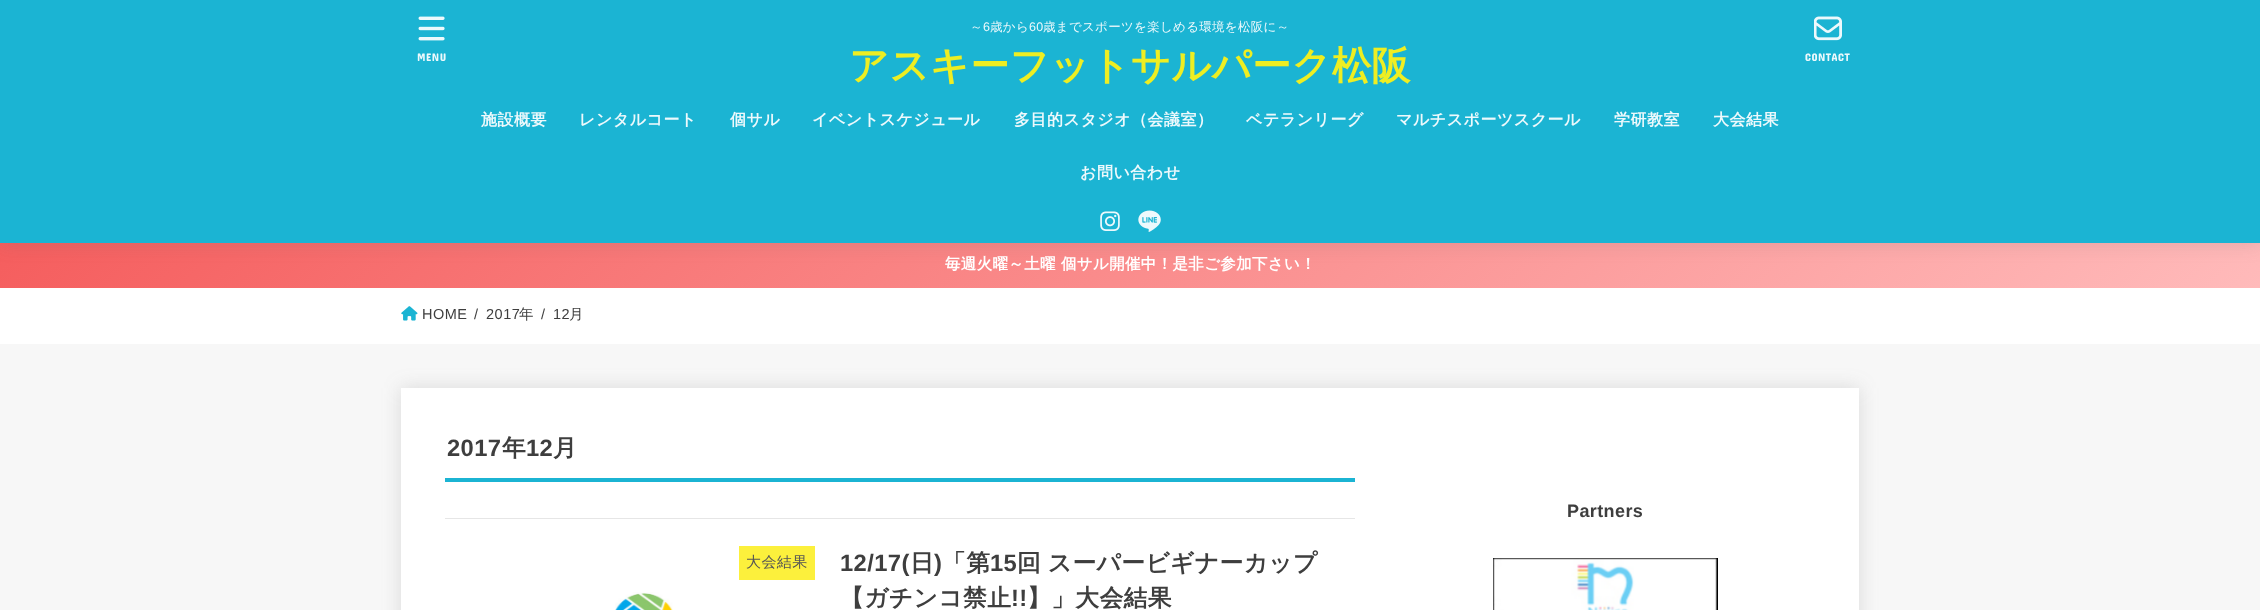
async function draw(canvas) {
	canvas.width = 2260;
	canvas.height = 610;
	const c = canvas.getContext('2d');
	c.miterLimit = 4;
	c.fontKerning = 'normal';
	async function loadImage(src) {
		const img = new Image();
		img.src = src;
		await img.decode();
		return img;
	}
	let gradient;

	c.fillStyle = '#f7f7f7';
	c.fillRect(0, 0, 2260, 610);
	gradient = c.createLinearGradient(554, -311, 1706, 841);
	gradient.addColorStop(0, '#f55e5e');
	gradient.addColorStop(1, '#ffbaba');
	c.fillStyle = gradient;
	c.fillRect(0, 243, 2260, 45);
	c.fillStyle = '#66666633';
	c.filter = 'blur(9.5px)';
	c.beginPath();
	c.rect(0, 0, 2260, 243);
	c.fill();
	c.filter = 'none';
	c.fillStyle = '#1bb4d3';
	c.fillRect(0, 0, 2260, 243);
	c.drawImage(await loadImage('img1.png'), 418, 16, 27, 25);
	c.letterSpacing = '0.5px';
	c.font = '11px Concert One';
	c.fillStyle = '#edf9fc';
	c.fillText('MENU', 417, 61);
	c.letterSpacing = '0.3px';
	c.font = '500 12.5px WenQuanYi Zen Hei';
	c.fillText('～', 970, 31);
	c.font = '12.5px Liberation Sans';
	c.fillText('6', 983, 31);
	c.font = '500 12.5px WenQuanYi Zen Hei';
	c.fillText('歳から', 990, 31);
	c.font = '12.5px Liberation Sans';
	c.fillText('60', 1029, 31);
	c.font = '500 12.5px WenQuanYi Zen Hei';
	c.fillText('歳までスポーツを楽しめる環境を松阪に～', 1043, 31);
	c.letterSpacing = '0.4px';
	c.font = 'bold 39.1px WenQuanYi Zen Hei';
	c.fillStyle = '#ee2';
	c.fillText('アスキーフットサルパーク松阪', 849, 79);
	c.drawImage(await loadImage('img2.png'), 1814, 16, 28, 25);
	c.letterSpacing = '0.5px';
	c.font = '11px Concert One';
	c.fillStyle = '#edf9fc';
	c.fillText('CONTACT', 1805, 61);
	c.font = 'bold 16px WenQuanYi Zen Hei';
	for (const [text, x, y] of [
		['施設概要', 481, 125],
		['レンタルコート', 579, 125],
		['個サル', 730, 125],
		['イベントスケジュール', 812, 125],
		['多目的スタジオ（会議室）', 1014, 125],
		['ベテランリーグ', 1246, 125],
		['マルチスポーツスクール', 1396, 125],
		['学研教室', 1614, 125],
		['大会結果', 1713, 125],
		['お問い合わせ', 1080, 178],
	]) {
		c.fillText(text, x, y);
	}
	c.drawImage(await loadImage('img3.png'), 1100, 211, 20, 20);
	c.drawImage(await loadImage('img4.png'), 1138, 210, 23, 22);
	c.letterSpacing = '0.4px';
	c.font = 'bold 15.45px WenQuanYi Zen Hei';
	c.fillStyle = '#fff';
	c.fillText('毎週火曜～土曜 個サル開催中！是非ご参加下さい！', 945, 269);
	c.fillRect(0, 288, 2260, 56);
	c.drawImage(await loadImage('img5.png'), 401, 306, 17, 15);
	c.letterSpacing = '0.5px';
	c.font = '14.5px Liberation Sans';
	c.fillStyle = '#3e3e3e';
	for (const [text, x, y] of [
		['HOME', 422, 319],
		['/', 474, 319],
		['2017', 486, 319],
	]) {
		c.fillText(text, x, y);
	}
	c.font = '500 14.5px WenQuanYi Zen Hei';
	c.fillText('年', 519, 319);
	c.font = '14.5px Liberation Sans';
	c.fillText('/', 541, 319);
	c.fillText('12', 553, 319);
	c.font = '500 14.5px WenQuanYi Zen Hei';
	c.fillText('月', 569, 319);
	c.fillStyle = '#66666633';
	c.filter = 'blur(9.5px)';
	c.beginPath();
	c.rect(401, 388, 1458, 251);
	c.fill();
	c.filter = 'none';
	c.fillStyle = '#fff';
	c.fillRect(401, 388, 1458, 222);
	c.fillStyle = '#1bb4d3';
	c.fillRect(445, 478, 910, 4);
	c.letterSpacing = '0.4px';
	c.font = 'bold 23.75px Liberation Sans';
	c.fillStyle = '#3e3e3e';
	c.fillText('2017', 447, 456);
	c.font = 'bold 23.75px WenQuanYi Zen Hei';
	c.fillText('年', 502, 456);
	c.font = 'bold 23.75px Liberation Sans';
	c.fillText('12', 526, 456);
	c.font = 'bold 23.75px WenQuanYi Zen Hei';
	c.fillText('月', 553, 456);
	c.fillStyle = '#e6e6e6';
	c.fillRect(445, 518, 910, 1);
	c.fillStyle = '#fcf03c';
	c.fillRect(739, 546, 76, 34);
	c.font = '500 15px WenQuanYi Zen Hei';
	c.fillStyle = '#555';
	c.fillText('大会結果', 746, 567);
	c.drawImage(await loadImage('img6.png'), 615, 592, 58, 18);
	c.font = 'bold 23.75px Liberation Sans';
	c.fillStyle = '#3e3e3e';
	c.fillText('12/17(', 840, 571);
	c.font = 'bold 23.75px WenQuanYi Zen Hei';
	c.fillText('日', 910, 571);
	c.font = 'bold 23.75px Liberation Sans';
	c.fillText(')', 934, 571);
	c.font = 'bold 23.75px WenQuanYi Zen Hei';
	c.fillText('「第', 942, 571);
	c.font = 'bold 23.75px Liberation Sans';
	c.fillText('15', 990, 571);
	c.wordSpacing = '-1px';
	c.font = 'bold 23.75px WenQuanYi Zen Hei';
	c.fillText('回 スーパービギナーカップ', 1017, 571);
	c.wordSpacing = '0px';
	c.fillText('【ガチンコ禁止', 840, 606);
	c.font = 'bold 23.75px Liberation Sans';
	c.fillText('!!', 1011, 606);
	c.font = 'bold 23.75px WenQuanYi Zen Hei';
	c.fillText('】」大会結果', 1027, 606);
	c.font = 'bold 18px Liberation Sans';
	c.fillText('Partners', 1567, 517);
	c.drawImage(await loadImage('img7.png'), 1493, 558, 225, 52);
}

draw(document.querySelector('canvas'));
